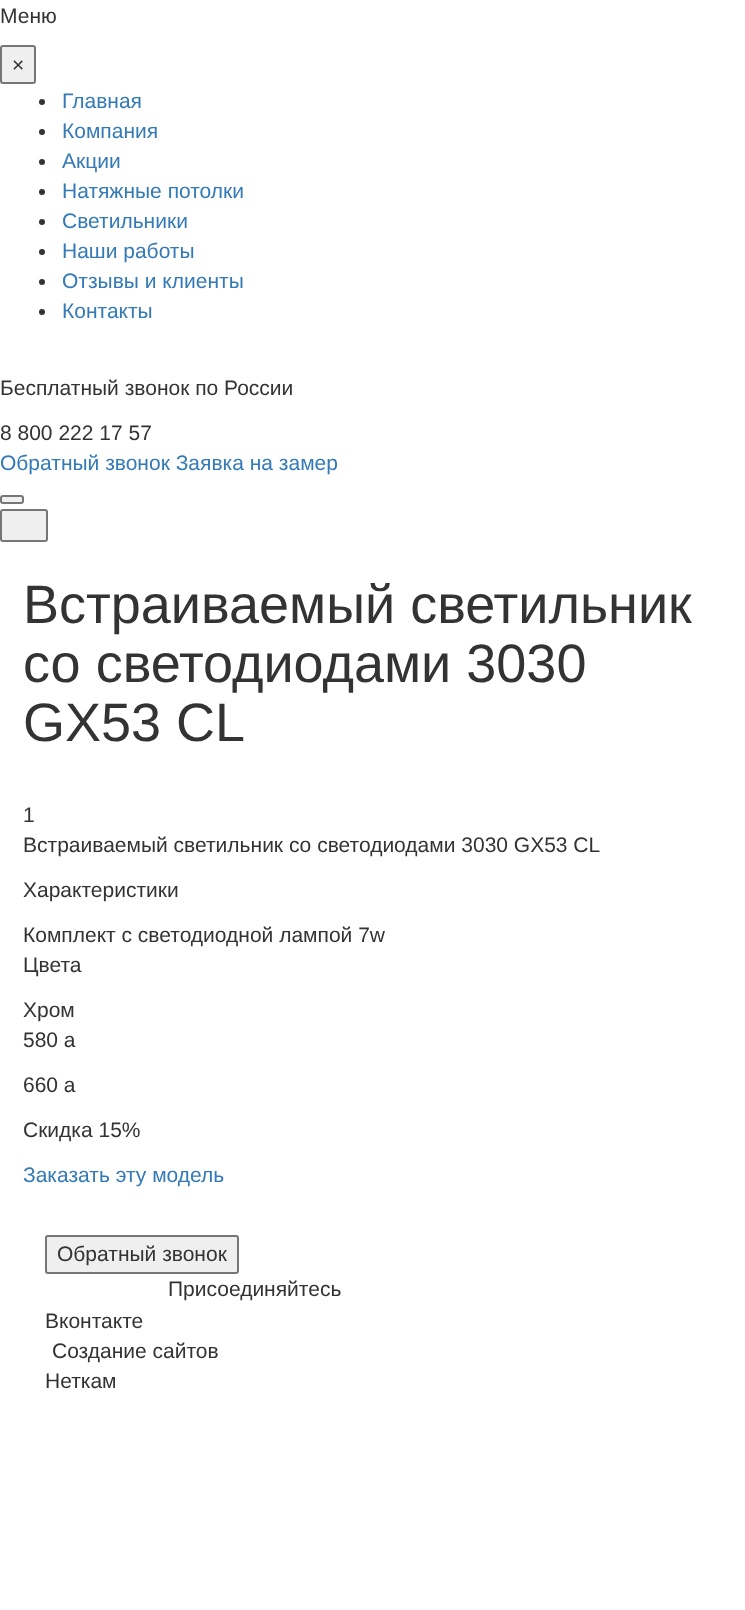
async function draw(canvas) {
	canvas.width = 745;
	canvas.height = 1610;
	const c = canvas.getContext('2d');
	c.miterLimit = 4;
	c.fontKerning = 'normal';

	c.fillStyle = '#fff';
	c.fillRect(0, 0, 745, 1610);
	c.font = '21px Liberation Sans';
	c.fillStyle = '#333';
	c.fillText('Меню', 0, 23);
	c.fillStyle = '#efefef';
	c.beginPath();
	c.roundRect(1, 46, 34, 37, 2);
	c.fill();
	c.strokeStyle = '#767676';
	c.lineWidth = 2;
	c.stroke();
	c.fillStyle = '#333';
	c.fillText('×', 12, 72);
	c.beginPath();
	c.arc(42, 102, 3, 0, 2 * Math.PI);
	c.fill();
	c.fillStyle = '#337ab7';
	c.fillText('Главная', 62, 108);
	c.fillStyle = '#333';
	c.beginPath();
	c.arc(42, 132, 3, 0, 2 * Math.PI);
	c.fill();
	c.fillStyle = '#337ab7';
	c.fillText('Компания', 62, 138);
	c.fillStyle = '#333';
	c.beginPath();
	c.arc(42, 162, 3, 0, 2 * Math.PI);
	c.fill();
	c.fillStyle = '#337ab7';
	c.fillText('Акции', 62, 168);
	c.fillStyle = '#333';
	c.beginPath();
	c.arc(42, 192, 3, 0, 2 * Math.PI);
	c.fill();
	c.fillStyle = '#337ab7';
	c.fillText('Натяжные потолки', 62, 198);
	c.fillStyle = '#333';
	c.beginPath();
	c.arc(42, 222, 3, 0, 2 * Math.PI);
	c.fill();
	c.fillStyle = '#337ab7';
	c.fillText('Светильники', 62, 228);
	c.fillStyle = '#333';
	c.beginPath();
	c.arc(42, 252, 3, 0, 2 * Math.PI);
	c.fill();
	c.fillStyle = '#337ab7';
	c.fillText('Наши работы', 62, 258);
	c.fillStyle = '#333';
	c.beginPath();
	c.arc(42, 282, 3, 0, 2 * Math.PI);
	c.fill();
	c.fillStyle = '#337ab7';
	c.fillText('Отзывы и клиенты', 62, 288);
	c.fillStyle = '#333';
	c.beginPath();
	c.arc(42, 312, 3, 0, 2 * Math.PI);
	c.fill();
	c.fillStyle = '#337ab7';
	c.fillText('Контакты', 62, 318);
	c.fillStyle = '#333';
	c.fillText('Бесплатный звонок по России', 0, 395);
	c.fillText('8 800 222 17 57', 0, 440);
	c.fillStyle = '#337ab7';
	c.fillText('Обратный звонок Заявка на замер', 0, 470);
	c.fillStyle = '#efefef';
	c.beginPath();
	c.roundRect(1, 496, 22, 7, 2);
	c.fill();
	c.stroke();
	c.beginPath();
	c.roundRect(1, 510, 46, 31, 2);
	c.fill();
	c.stroke();
	c.font = '54px Liberation Sans';
	c.fillStyle = '#333';
	for (const [text, x, y] of [
		['Встраиваемый светильник', 23, 623],
		['со светодиодами 3030', 23, 682],
		['GX53 CL', 23, 741],
	]) {
		c.fillText(text, x, y);
	}
	c.font = '21px Liberation Sans';
	for (const [text, x, y] of [
		['1', 23, 822],
		['Встраиваемый светильник со светодиодами 3030 GX53 CL', 23, 852],
		['Характеристики', 23, 897],
		['Комплект с светодиодной лампой 7w', 23, 942],
		['Цвета', 23, 972],
		['Хром', 23, 1017],
		['580 a', 23, 1047],
		['660 a', 23, 1092],
		['Скидка 15%', 23, 1137],
	]) {
		c.fillText(text, x, y);
	}
	c.fillStyle = '#337ab7';
	c.fillText('Заказать эту модель', 23, 1182);
	c.fillStyle = '#efefef';
	c.beginPath();
	c.roundRect(46, 1236, 192, 37, 2);
	c.fill();
	c.stroke();
	c.fillStyle = '#333';
	for (const [text, x, y] of [
		['Обратный звонок', 57, 1261],
		['Присоединяйтесь', 168, 1296],
		['Вконтакте', 45, 1328],
		['Создание сайтов', 52, 1358],
		['Неткам', 45, 1388],
	]) {
		c.fillText(text, x, y);
	}
}

draw(document.querySelector('canvas'));
